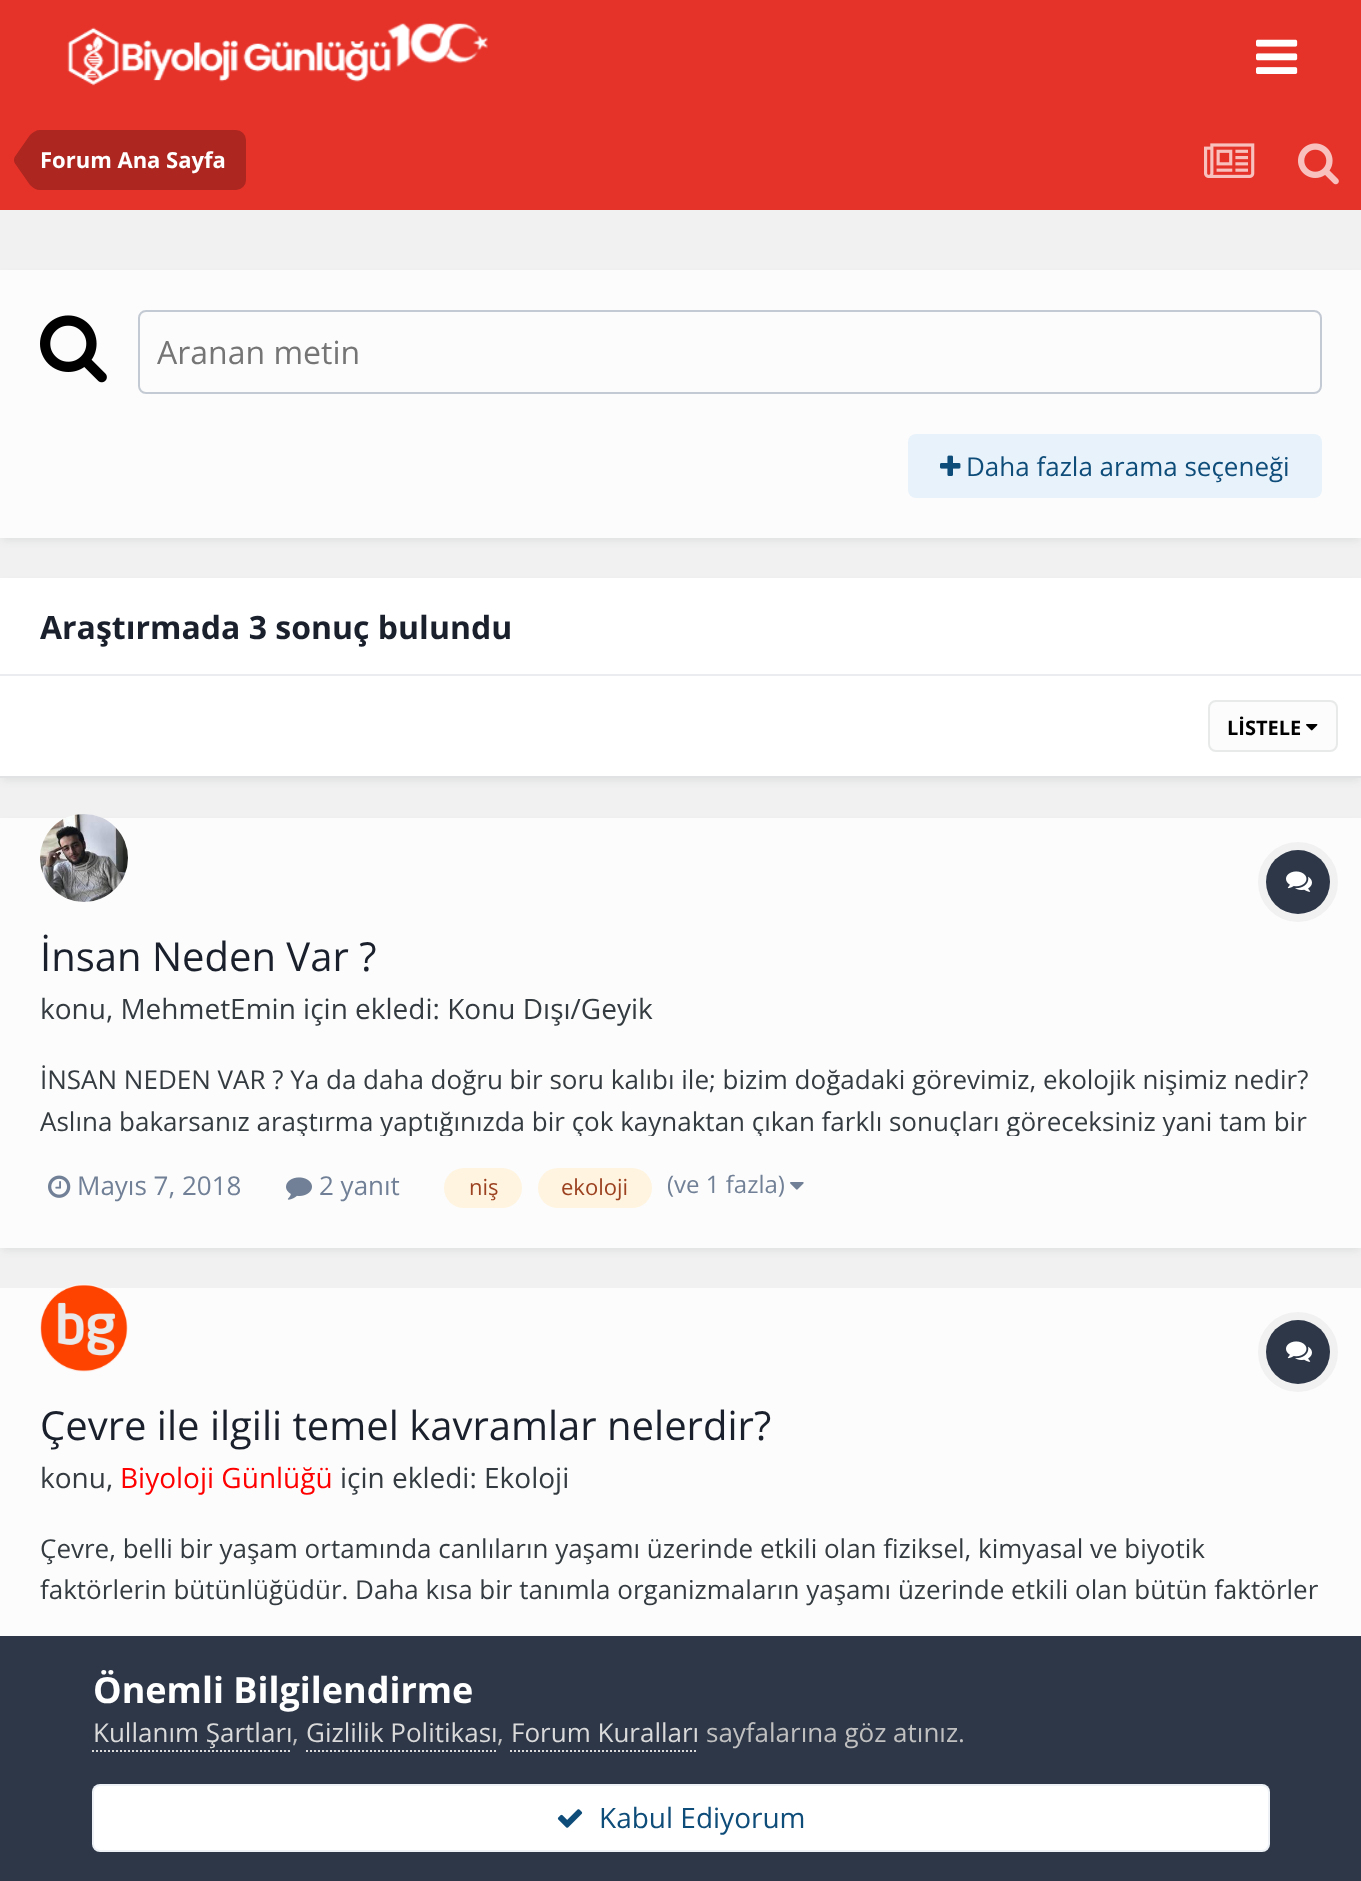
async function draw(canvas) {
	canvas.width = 1361;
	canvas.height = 1881;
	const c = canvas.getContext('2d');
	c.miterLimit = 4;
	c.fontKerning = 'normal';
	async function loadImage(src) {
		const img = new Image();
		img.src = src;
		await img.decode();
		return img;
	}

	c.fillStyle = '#f1f1f1';
	c.fillRect(0, 0, 1361, 1881);
	c.fillStyle = '#e6332a';
	c.fillRect(0, 0, 1361, 210);
	c.drawImage(await loadImage('img1.png'), 67, 23, 421, 63);
	c.drawImage(await loadImage('img2.png'), 1256, 39, 42, 35);
	c.fillStyle = '#ad2620';
	c.beginPath();
	c.roundRect(40, 130, 206, 60, [0, 10, 10, 0]);
	c.fill();
	c.beginPath();
	c.moveTo(40, 160);
	c.lineTo(40, 190);
	c.bezierCurveTo(36.5, 190, 33, 188, 30, 185);
	c.lineTo(15, 163.5);
	c.bezierCurveTo(14.5, 162.5, 14, 161.5, 14, 160);
	c.closePath();
	c.moveTo(40, 160);
	c.lineTo(14, 160);
	c.bezierCurveTo(14, 158.5, 14.5, 157.5, 15, 156.5);
	c.lineTo(30, 135);
	c.bezierCurveTo(33, 132, 36.5, 130, 40, 130);
	c.closePath();
	c.fill();
	c.font = 'bold 22px Open Sans';
	c.fillStyle = '#fff';
	c.fillText('Forum Ana Sayfa', 40, 168);
	c.drawImage(await loadImage('img3.png'), 1204, 143, 51, 35);
	c.drawImage(await loadImage('img4.png'), 1298, 143, 41, 42);
	c.fillStyle = '#2d37481a';
	c.filter = 'blur(4px)';
	c.beginPath();
	c.rect(2, 276, 1358, 264);
	c.fill();
	c.filter = 'none';
	c.fillStyle = '#fcfcfc';
	c.fillRect(0, 270, 1361, 268);
	c.drawImage(await loadImage('img5.png'), 40, 315, 67, 68);
	c.beginPath();
	c.roundRect(139, 311, 1182, 82, 7);
	c.strokeStyle = '#c4cad3';
	c.lineWidth = 2;
	c.stroke();
	c.font = '32px Open Sans';
	c.fillStyle = '#757575';
	c.fillText('Aranan metin', 157, 364);
	c.fillStyle = '#e8f2fa';
	c.beginPath();
	c.roundRect(908, 434, 414, 64, 8);
	c.fill();
	c.drawImage(await loadImage('img6.png'), 940, 455, 21, 21);
	c.font = '26px Open Sans';
	c.fillStyle = '#0e4c79';
	c.fillText('Daha fazla arama seçeneği', 966, 476);
	c.fillStyle = '#2d37481a';
	c.filter = 'blur(4px)';
	c.beginPath();
	c.rect(2, 584, 1358, 196);
	c.fill();
	c.filter = 'none';
	c.fillStyle = '#fff';
	c.fillRect(0, 578, 1361, 96);
	c.fillStyle = '#eaecef';
	c.fillRect(0, 674, 1361, 2);
	c.font = 'bold 32px Open Sans';
	c.fillStyle = '#1a202c';
	c.fillText('Araştırmada 3 sonuç bulundu', 40, 639);
	c.fillStyle = '#fff';
	c.fillRect(0, 676, 1361, 100);
	c.fillStyle = '#e1e2e3';
	c.fillRect(0, 776, 1361, 2);
	c.fillStyle = '#fcfcfc';
	c.beginPath();
	c.roundRect(1208, 700, 130, 52, 8);
	c.fill();
	c.drawImage(await loadImage('img7.png'), 1306, 724, 12, 7);
	c.beginPath();
	c.roundRect(1209, 701, 128, 50, 7);
	c.strokeStyle = '#e8e9e9';
	c.stroke();
	c.font = 'bold 20px Open Sans';
	c.fillStyle = '#000';
	c.fillText('LİSTELE', 1227, 735);
	c.fillStyle = '#2d37481a';
	c.filter = 'blur(4px)';
	c.beginPath();
	c.rect(2, 824, 1358, 426);
	c.fill();
	c.filter = 'none';
	c.fillStyle = '#fcfcfc';
	c.fillRect(0, 818, 1361, 430);
	c.beginPath();
	c.arc(84, 858, 44, 0, 2 * Math.PI);
	c.fill();
	c.drawImage(await loadImage('img8.png'), 40, 814, 88, 88);
	c.beginPath();
	c.arc(1298, 882, 36, 0, 2 * Math.PI);
	c.strokeStyle = '#f1f1f1';
	c.lineWidth = 8;
	c.stroke();
	c.fillStyle = '#2d3748';
	c.beginPath();
	c.arc(1298, 882, 32, 0, 2 * Math.PI);
	c.fill();
	c.drawImage(await loadImage('img9.png'), 1286, 871, 26, 21);
	c.font = '40px Open Sans';
	c.fillStyle = '#1a202c';
	c.fillText('İnsan Neden Var ?', 40, 971);
	c.font = '28px Open Sans';
	c.fillStyle = '#353c41';
	c.fillText('konu, MehmetEmin için ekledi: Konu Dışı/Geyik', 40, 1019);
	c.font = '26px Open Sans';
	c.fillText('İNSAN NEDEN VAR ? Ya da daha doğru bir soru kalıbı ile; bizim doğadaki görevimiz, ekolojik nişimiz nedir?', 40, 1089);
	c.save();
	c.beginPath();
	c.rect(40, 1058, 1282, 78);
	c.clip();
	c.fillText('Aslına bakarsanız araştırma yaptığınızda bir çok kaynaktan çıkan farklı sonuçları göreceksiniz yani tam bir', 40, 1131);
	c.restore();
	c.drawImage(await loadImage('img10.png'), 48, 1175, 23, 23);
	c.fillStyle = '#718096';
	c.fillText('Mayıs 7, 2018', 77, 1195);
	c.drawImage(await loadImage('img11.png'), 286, 1177, 26, 23);
	c.fillText('2 yanıt', 319, 1195);
	c.fillStyle = '#fff4df';
	c.beginPath();
	c.roundRect(444, 1168, 78, 40, 20);
	c.fill();
	c.font = '22px Open Sans';
	c.fillStyle = '#9c4221';
	c.fillText('niş', 469, 1195);
	c.fillStyle = '#fff4df';
	c.beginPath();
	c.roundRect(538, 1168, 114, 40, 20);
	c.fill();
	c.fillStyle = '#9c4221';
	c.fillText('ekoloji', 561, 1195);
	c.font = '24px Open Sans';
	c.fillStyle = '#718096';
	c.fillText('(ve 1 fazla)', 667, 1193);
	c.drawImage(await loadImage('img12.png'), 790, 1182, 14, 8);
	c.fillStyle = '#fcfcfc';
	c.fillRect(0, 1288, 1361, 348);
	c.beginPath();
	c.arc(84, 1328, 44, 0, 2 * Math.PI);
	c.fill();
	c.drawImage(await loadImage('img13.png'), 40, 1284, 88, 88);
	c.beginPath();
	c.arc(1298, 1352, 36, 0, 2 * Math.PI);
	c.stroke();
	c.fillStyle = '#2d3748';
	c.beginPath();
	c.arc(1298, 1352, 32, 0, 2 * Math.PI);
	c.fill();
	c.drawImage(await loadImage('img9.png'), 1286, 1341, 26, 21);
	c.font = '40px Open Sans';
	c.fillStyle = '#1a202c';
	c.fillText('Çevre ile ilgili temel kavramlar nelerdir?', 40, 1440);
	c.font = '28px Open Sans';
	c.fillStyle = '#353c41';
	c.fillText('konu,', 40, 1488);
	c.fillStyle = '#f00';
	c.fillText('Biyoloji Günlüğü', 120, 1488);
	c.fillStyle = '#353c41';
	c.fillText('için ekledi: Ekoloji', 340, 1488);
	c.font = '26px Open Sans';
	c.fillText('Çevre, belli bir yaşam ortamında canlıların yaşamı üzerinde etkili olan fiziksel, kimyasal ve biyotik', 40, 1558);
	c.fillText('faktörlerin bütünlüğüdür. Daha kısa bir tanımla organizmaların yaşamı üzerinde etkili olan bütün faktörler', 40, 1599);
	c.fillStyle = '#2d3748';
	c.fillRect(0, 1636, 1361, 245);
	c.font = 'bold 36px Open Sans';
	c.fillStyle = '#fff';
	c.fillText('Önemli Bilgilendirme', 93, 1703);
	c.font = '26px Open Sans';
	c.fillStyle = '#dadada';
	c.fillText('Kullanım Şartları', 93, 1742);
	c.beginPath();
	c.moveTo(92, 1751);
	c.lineTo(292, 1751);
	c.strokeStyle = '#dadada';
	c.lineWidth = 2;
	c.setLineDash([2, 2]);
	c.stroke();
	c.fillStyle = '#c0c0c0';
	c.fillText(',', 292, 1742);
	c.fillStyle = '#dadada';
	c.fillText('Gizlilik Politikası', 306, 1742);
	c.beginPath();
	c.moveTo(306, 1751);
	c.lineTo(498, 1751);
	c.stroke();
	c.fillStyle = '#c0c0c0';
	c.fillText(',', 497, 1742);
	c.fillStyle = '#dadada';
	c.fillText('Forum Kuralları', 511, 1742);
	c.beginPath();
	c.moveTo(510, 1751);
	c.lineTo(698, 1751);
	c.stroke();
	c.fillStyle = '#c0c0c0';
	c.fillText('sayfalarına göz atınız.', 706, 1742);
	c.fillStyle = '#fff';
	c.beginPath();
	c.roundRect(92, 1784, 1178, 68, 8);
	c.fill();
	c.beginPath();
	c.roundRect(93, 1785, 1176, 66, 7);
	c.strokeStyle = '#0e4c7912';
	c.setLineDash([]);
	c.stroke();
	c.drawImage(await loadImage('img14.png'), 557, 1809, 26, 19);
	c.font = '28px Open Sans';
	c.fillStyle = '#0e4c79';
	c.fillText('Kabul Ediyorum', 599, 1828);
}

draw(document.querySelector('canvas'));
